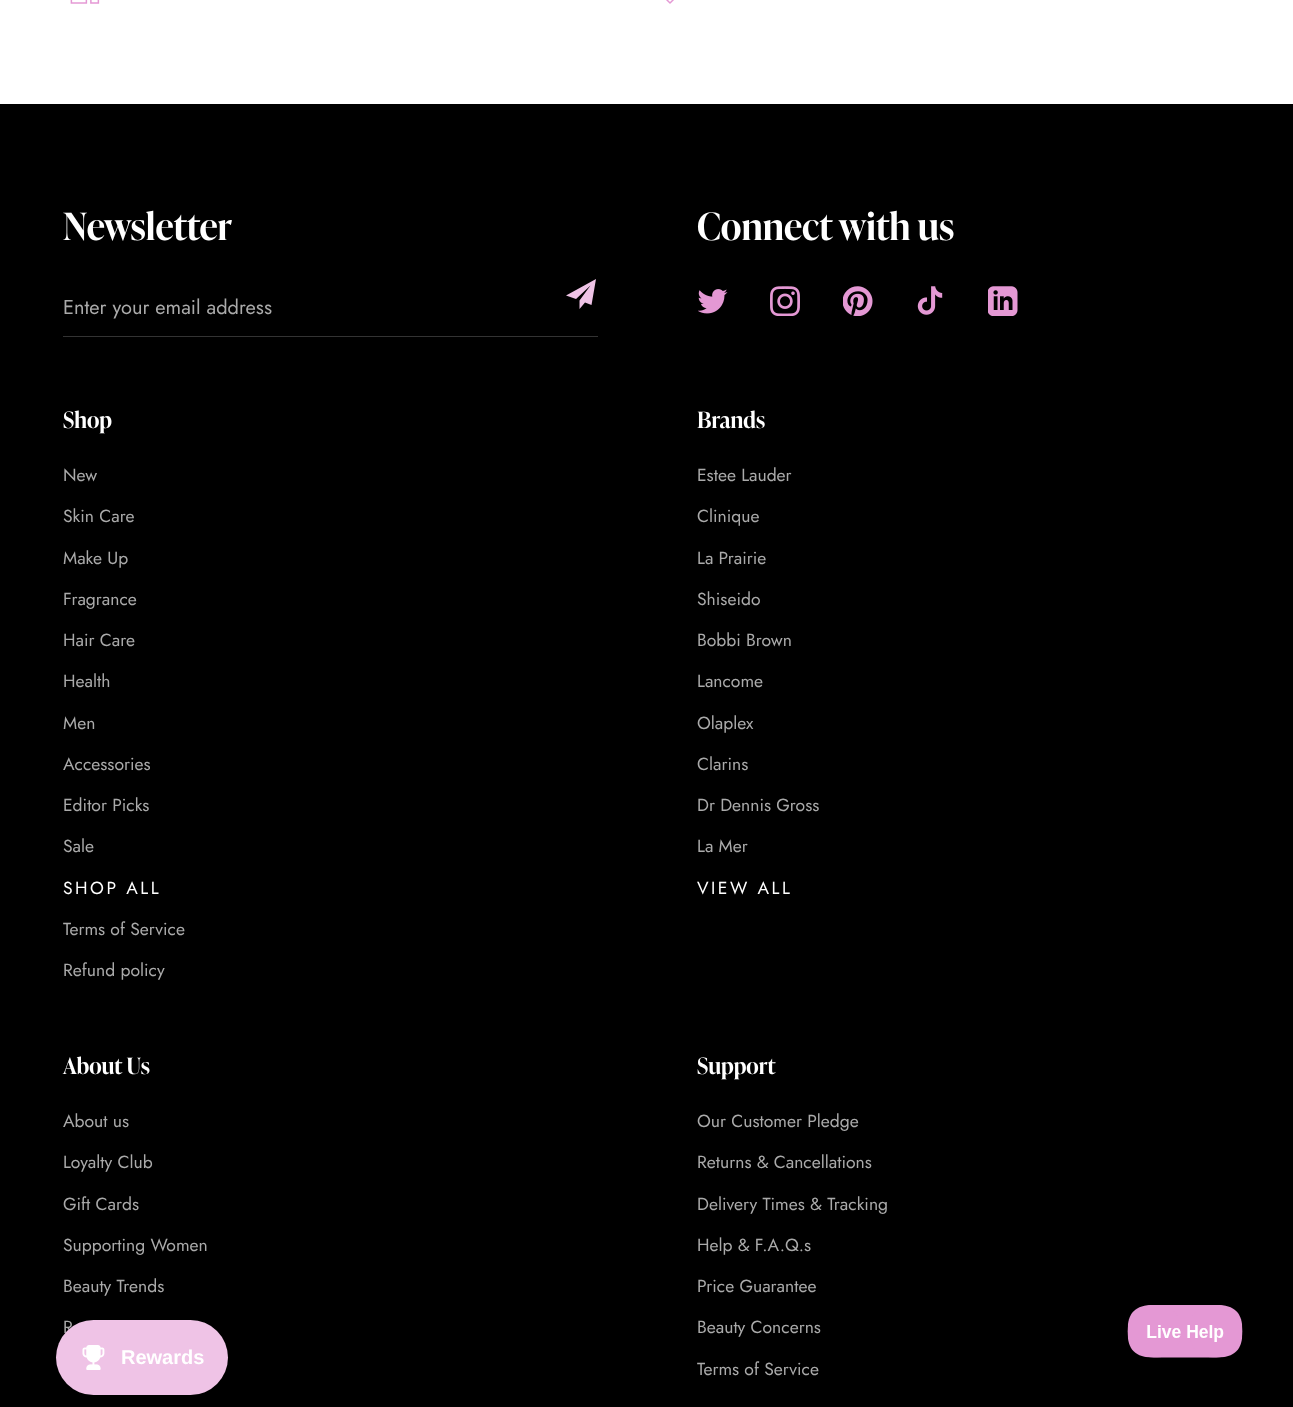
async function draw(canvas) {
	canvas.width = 1293;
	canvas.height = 1407;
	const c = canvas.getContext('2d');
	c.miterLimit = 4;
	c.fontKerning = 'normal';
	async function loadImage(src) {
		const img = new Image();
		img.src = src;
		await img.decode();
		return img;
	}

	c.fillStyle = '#fff';
	c.fillRect(0, 0, 1293, 1407);
	c.drawImage(await loadImage('img1.png'), 70, 0, 30, 4);
	c.drawImage(await loadImage('img2.png'), 666, 0, 8, 4);
	c.fillStyle = '#000';
	c.fillRect(0, 104, 1293, 1303);
	c.font = '600 37.5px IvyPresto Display';
	c.fillStyle = '#fff';
	c.fillText('Newsletter', 63, 240);
	c.fillStyle = '#333';
	c.fillRect(63, 336, 535, 1);
	c.font = '20px Jost';
	c.fillStyle = '#aaa';
	c.fillText('Enter your email address', 63, 314);
	c.fillStyle = '#efc3e6';
	c.beginPath();
	c.moveTo(596, 279);
	c.lineTo(566, 295.5);
	c.lineTo(576, 299);
	c.lineTo(590.5, 285.5);
	c.lineTo(579.5, 300.5);
	c.lineTo(579.5, 309);
	c.lineTo(585, 302.5);
	c.lineTo(591.5, 305);
	c.closePath();
	c.fill();
	c.font = '600 37.5px IvyPresto Display';
	c.fillStyle = '#fff';
	c.fillText('Connect with us', 697, 240);
	c.drawImage(await loadImage('img3.png'), 698, 289, 30, 25);
	c.drawImage(await loadImage('img4.png'), 770, 286, 30, 30);
	c.drawImage(await loadImage('img5.png'), 843, 286, 30, 30);
	c.drawImage(await loadImage('img6.png'), 917, 286, 26, 29);
	c.drawImage(await loadImage('img7.png'), 988, 286, 30, 30);
	c.font = '600 22.5px IvyPresto Display';
	c.fillText('Shop', 63, 428);
	c.font = '17.5px Jost';
	c.fillStyle = '#aaa';
	for (const [text, x, y] of [
		['New', 63, 481],
		['Skin Care', 63, 522],
		['Make Up', 63, 564],
		['Fragrance', 63, 605],
		['Hair Care', 63, 646],
		['Health', 63, 687],
		['Men', 63, 729],
		['Accessories', 63, 770],
		['Editor Picks', 63, 811],
		['Sale', 63, 852],
	]) {
		c.fillText(text, x, y);
	}
	c.letterSpacing = '2.5px';
	c.fillStyle = '#fff';
	c.fillText('SHOP ALL', 63, 894);
	c.letterSpacing = '0px';
	c.fillStyle = '#aaa';
	c.fillText('Terms of Service', 63, 935);
	c.fillText('Refund policy', 63, 976);
	c.font = '600 22.5px IvyPresto Display';
	c.fillStyle = '#fff';
	c.fillText('Brands', 697, 428);
	c.font = '17.5px Jost';
	c.fillStyle = '#aaa';
	for (const [text, x, y] of [
		['Estee Lauder', 697, 481],
		['Clinique', 697, 522],
		['La Prairie', 697, 564],
		['Shiseido', 697, 605],
		['Bobbi Brown', 697, 646],
		['Lancome', 697, 687],
		['Olaplex', 697, 729],
		['Clarins', 697, 770],
		['Dr Dennis Gross', 697, 811],
		['La Mer', 697, 852],
	]) {
		c.fillText(text, x, y);
	}
	c.letterSpacing = '2.5px';
	c.fillStyle = '#fff';
	c.fillText('VIEW ALL', 697, 894);
	c.letterSpacing = '0px';
	c.font = '600 22.5px IvyPresto Display';
	c.fillText('About Us', 63, 1074);
	c.font = '17.5px Jost';
	c.fillStyle = '#aaa';
	for (const [text, x, y] of [
		['About us', 63, 1127],
		['Loyalty Club', 63, 1168],
		['Gift Cards', 63, 1210],
		['Supporting Women', 63, 1251],
		['Beauty Trends', 63, 1292],
		['R', 63, 1333],
	]) {
		c.fillText(text, x, y);
	}
	c.font = '600 22.5px IvyPresto Display';
	c.fillStyle = '#fff';
	c.fillText('Support', 697, 1074);
	c.font = '17.5px Jost';
	c.fillStyle = '#aaa';
	for (const [text, x, y] of [
		['Our Customer Pledge', 697, 1127],
		['Returns & Cancellations', 697, 1168],
		['Delivery Times & Tracking', 697, 1210],
		['Help & F.A.Q.s', 697, 1251],
		['Price Guarantee', 697, 1292],
		['Beauty Concerns', 697, 1333],
		['Terms of Service', 697, 1375],
	]) {
		c.fillText(text, x, y);
	}
	c.drawImage(await loadImage('img8.png'), 1127, 1305, 116, 53);
	c.fillStyle = '#efc3e6';
	c.beginPath();
	c.roundRect(56, 1320, 172, 75, 37.5);
	c.fill();
	c.drawImage(await loadImage('img9.png'), 82, 1345, 23, 25);
	c.font = 'bold 20px Liberation Sans';
	c.fillStyle = '#fff';
	c.fillText('Rewards', 121, 1364);
}

draw(document.querySelector('canvas'));
